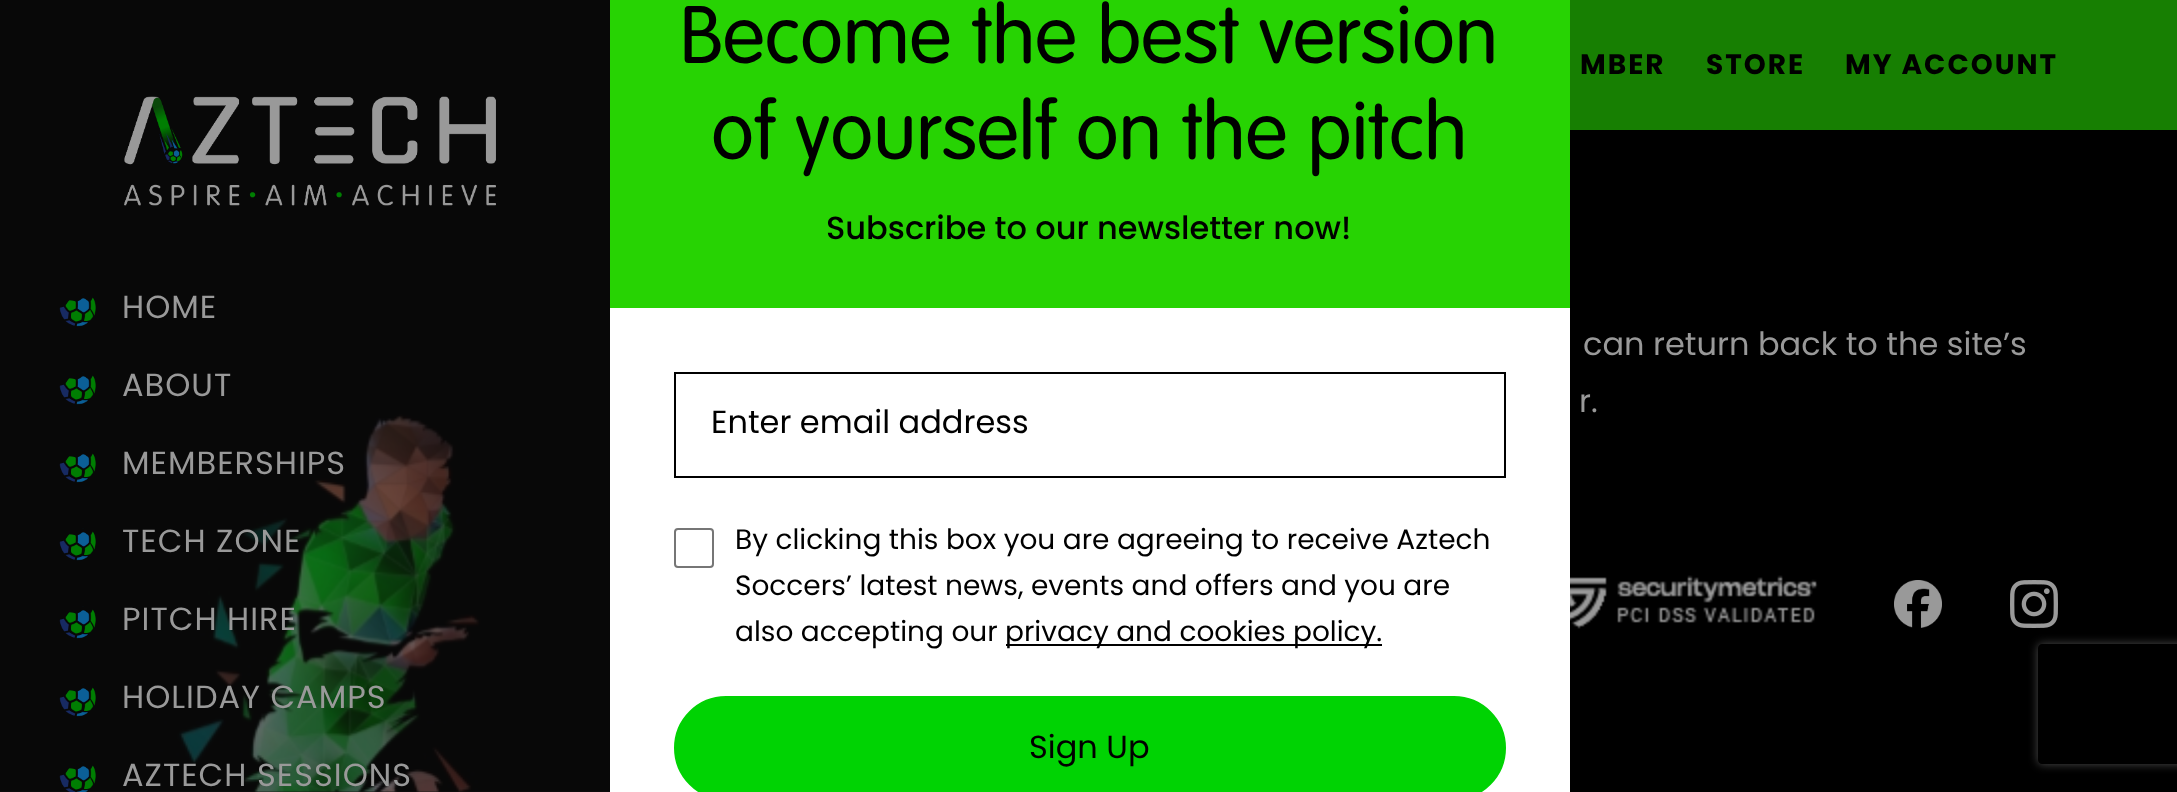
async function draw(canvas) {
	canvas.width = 2177;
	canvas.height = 792;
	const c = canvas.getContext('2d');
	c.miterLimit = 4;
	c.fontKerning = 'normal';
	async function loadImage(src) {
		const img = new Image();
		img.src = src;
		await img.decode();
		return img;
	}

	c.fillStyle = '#000';
	c.fillRect(0, 0, 2177, 792);
	c.fillStyle = '#fff';
	c.fillRect(610, 308, 960, 484);
	c.fillStyle = '#27d303';
	c.fillRect(610, 0, 960, 308);
	c.font = '300 80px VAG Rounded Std';
	c.fillStyle = '#000';
	c.fillText('Become the best version', 680, 63);
	c.fillText('of yourself on the pitch', 711, 159);
	c.font = '500 32px Poppins';
	c.fillText('Subscribe to our newsletter now!', 826, 239);
	c.strokeStyle = '#000';
	c.lineWidth = 2;
	c.strokeRect(675, 373, 830, 104);
	c.font = '32px Poppins';
	c.fillText('Enter email address', 711, 433);
	c.beginPath();
	c.roundRect(675, 529, 38, 38, 3);
	c.strokeStyle = '#767676';
	c.stroke();
	c.font = '28px Poppins';
	for (const [text, x, y] of [
		['By clicking this box you are agreeing to receive Aztech', 735, 549],
		['Soccers’ latest news, events and offers and you are', 735, 595],
		['also accepting our', 735, 641],
	]) {
		c.fillText(text, x, y);
	}
	c.fillRect(1006, 644, 376, 2);
	c.fillText('privacy and cookies policy.', 1005, 641);
	c.fillStyle = '#00d303';
	c.beginPath();
	c.roundRect(675, 697, 830, 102, 51);
	c.fill();
	c.strokeStyle = '#00d303';
	c.stroke();
	c.font = '32px Poppins';
	c.fillStyle = '#000';
	c.fillText('Sign Up', 1029, 758);
	c.fillStyle = '#177f02';
	c.fillRect(1570, 0, 607, 130);
	c.letterSpacing = '2px';
	c.font = 'bold 28px Poppins';
	c.fillStyle = '#000';
	for (const [text, x, y] of [
		['MBER', 1580, 74],
		['STORE', 1706, 74],
		['MY ACCOUNT', 1845, 74],
	]) {
		c.fillText(text, x, y);
	}
	c.letterSpacing = '0px';
	c.font = '32px Poppins';
	c.fillStyle = '#999';
	c.fillText('can return back to the site’s', 1583, 355);
	c.fillText('r.', 1579, 412);
	c.drawImage(await loadImage('img1.png'), 1570, 575, 248, 54);
	c.drawImage(await loadImage('img2.png'), 1894, 580, 48, 48);
	c.drawImage(await loadImage('img3.png'), 2010, 580, 48, 48);
	c.fillStyle = '#151313';
	c.fillRect(0, 791, 610, 1);
	c.drawImage(await loadImage('img4.png'), 0, 0, 610, 792);
	c.drawImage(await loadImage('img5.png'), 124, 96, 372, 110);
	c.drawImage(await loadImage('img6.png'), 59, 294, 37, 33);
	c.letterSpacing = '1px';
	c.fillStyle = '#999';
	c.fillText('HOME', 122, 318);
	c.drawImage(await loadImage('img6.png'), 59, 372, 37, 33);
	c.fillText('ABOUT', 122, 396);
	c.drawImage(await loadImage('img6.png'), 59, 450, 37, 33);
	c.fillText('MEMBERSHIPS', 122, 474);
	c.drawImage(await loadImage('img6.png'), 59, 528, 37, 33);
	c.fillText('TECH ZONE', 122, 552);
	c.drawImage(await loadImage('img6.png'), 59, 606, 37, 33);
	c.fillText('PITCH HIRE', 122, 630);
	c.drawImage(await loadImage('img6.png'), 59, 684, 37, 33);
	c.fillText('HOLIDAY CAMPS', 122, 708);
	c.drawImage(await loadImage('img7.png'), 59, 762, 37, 30);
	c.fillText('AZTECH SESSIONS', 122, 786);
	c.save();
	c.beginPath();
	c.moveTo(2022, 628);
	c.lineTo(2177, 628);
	c.lineTo(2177, 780);
	c.lineTo(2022, 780);
	c.closePath();
	c.moveTo(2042, 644);
	c.lineTo(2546, 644);
	c.bezierCurveTo(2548, 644, 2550, 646, 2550, 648);
	c.lineTo(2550, 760);
	c.bezierCurveTo(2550, 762, 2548, 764, 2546, 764);
	c.lineTo(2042, 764);
	c.bezierCurveTo(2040, 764, 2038, 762, 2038, 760);
	c.lineTo(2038, 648);
	c.bezierCurveTo(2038, 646, 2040, 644, 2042, 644);
	c.closePath();
	c.clip('evenodd');
	c.fillStyle = '#4d4d4d';
	c.filter = 'blur(5px)';
	c.beginPath();
	c.roundRect(2038, 644, 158, 120, 4);
	c.fill();
	c.filter = 'none';
	c.restore();
}

draw(document.querySelector('canvas'));
